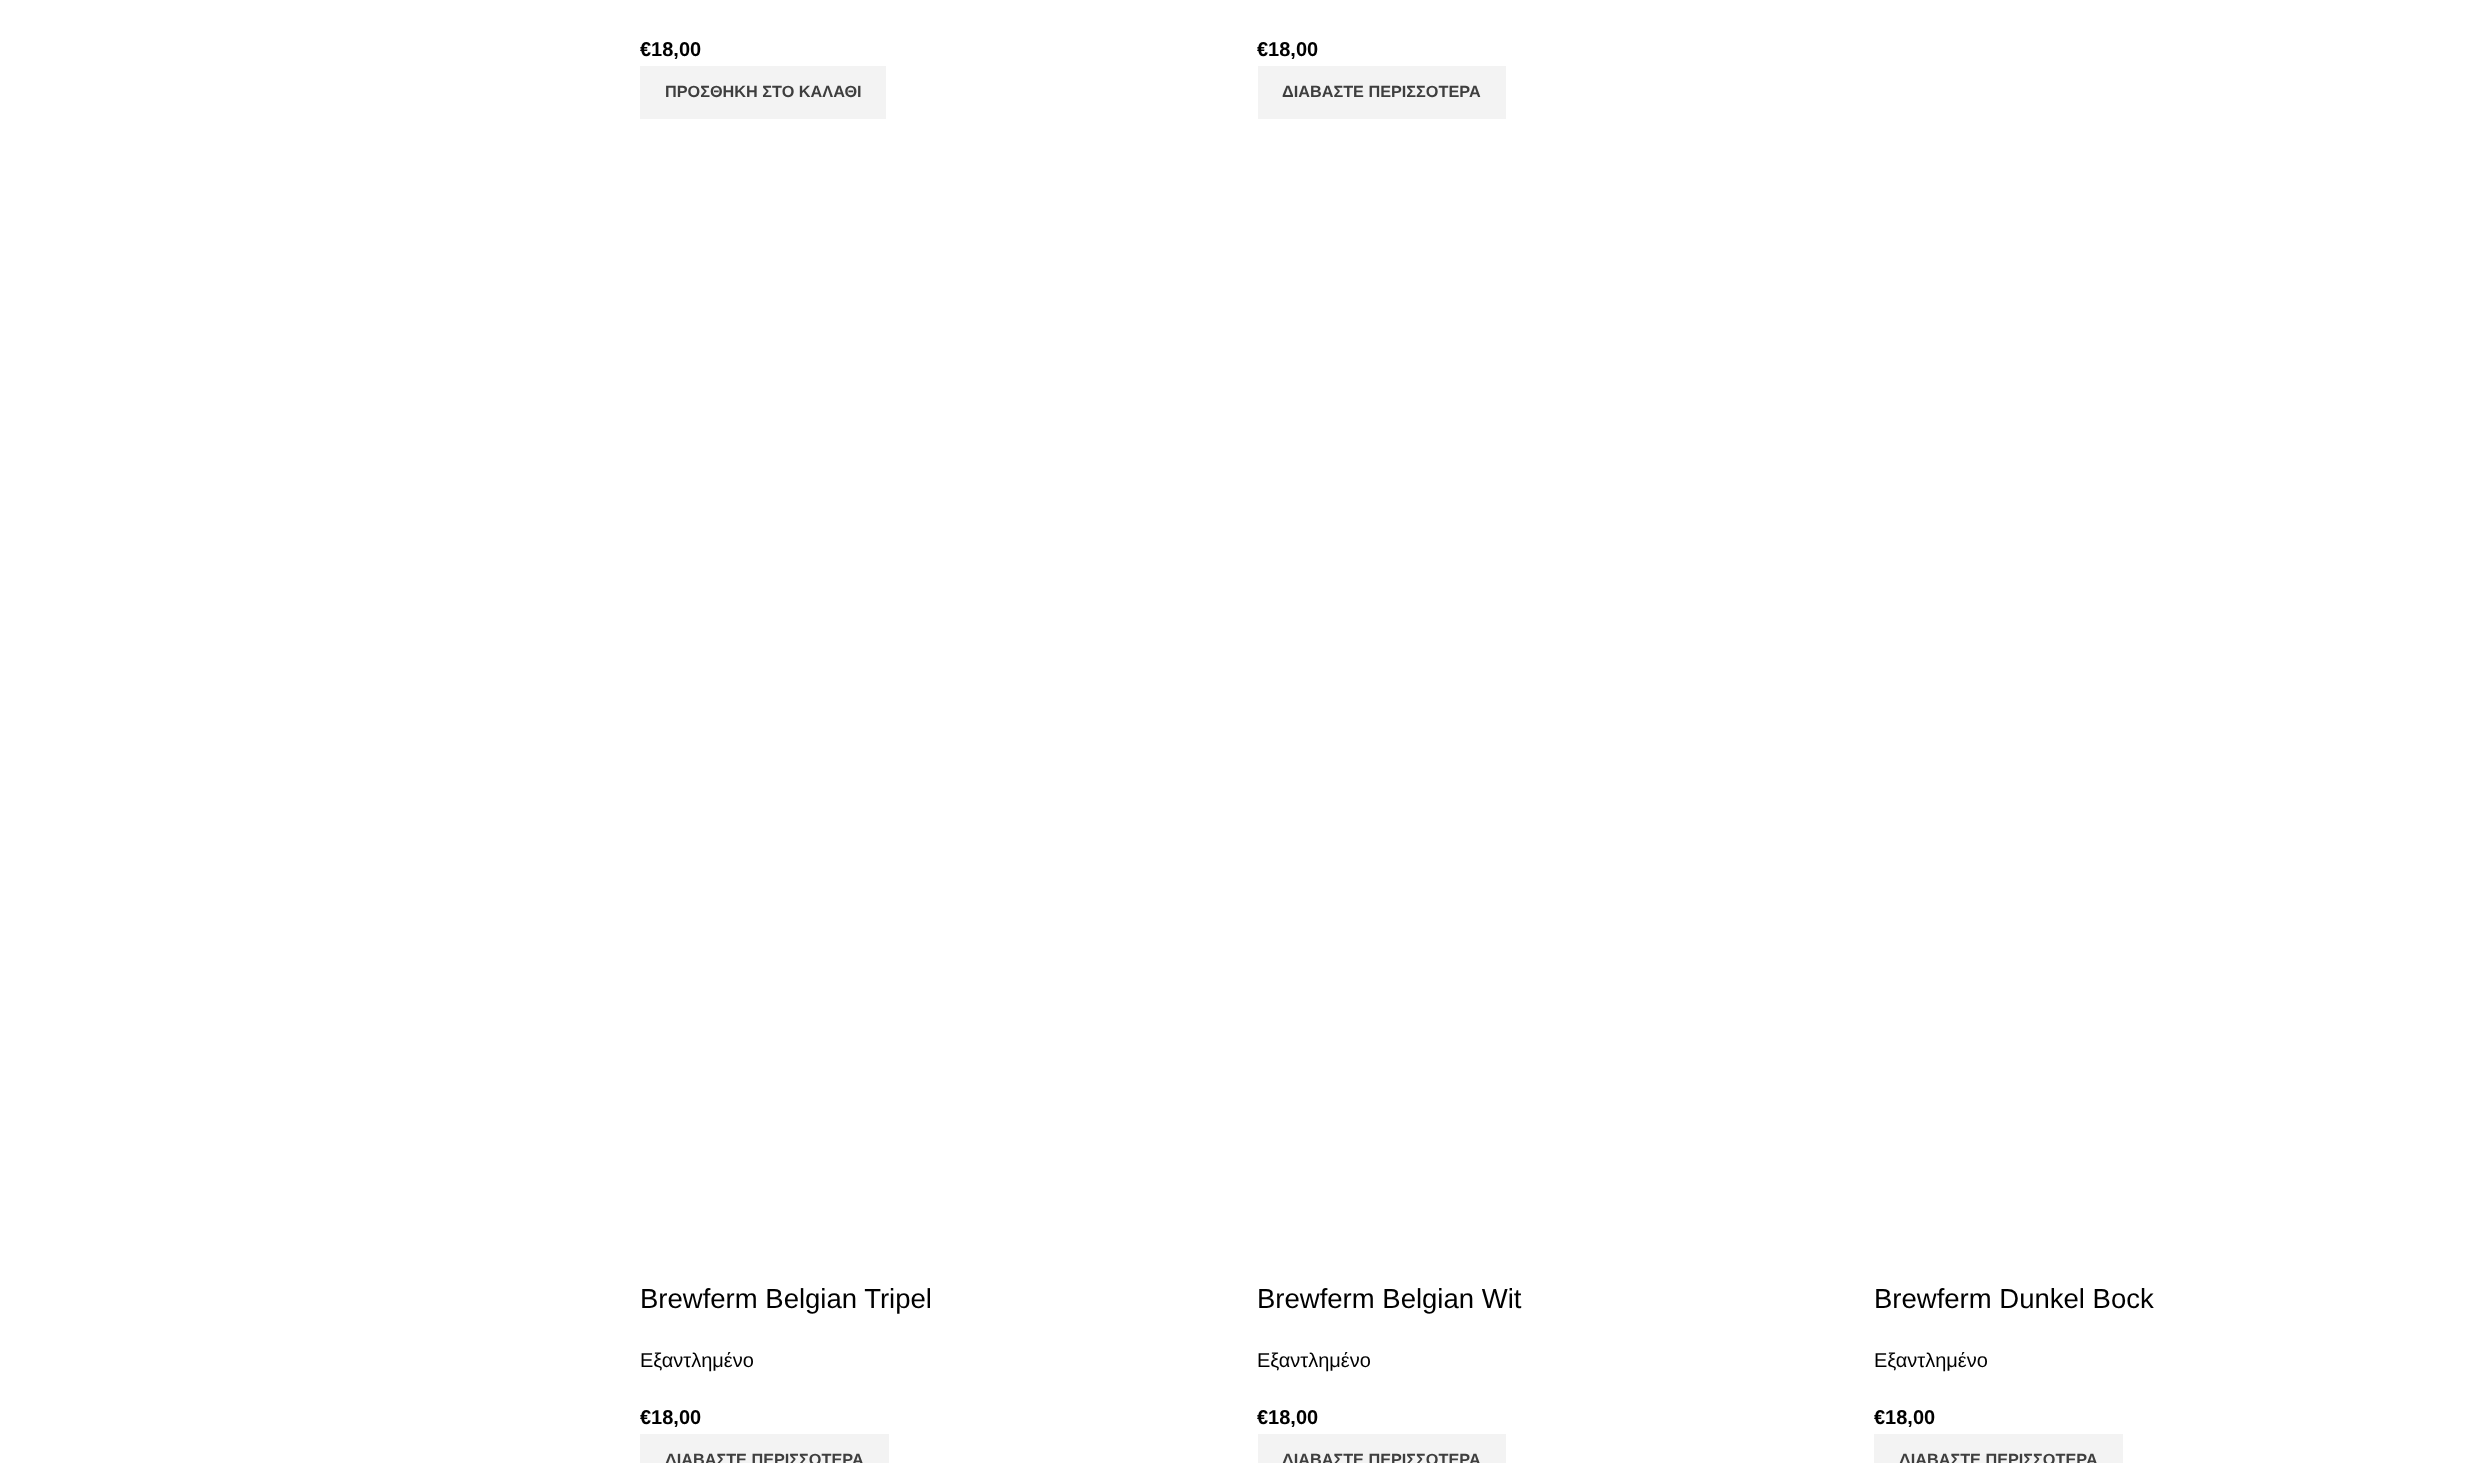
async function draw(canvas) {
	canvas.width = 2484;
	canvas.height = 1463;
	const c = canvas.getContext('2d');
	c.miterLimit = 4;
	c.fontKerning = 'normal';

	c.fillStyle = '#fff';
	c.fillRect(0, 0, 2484, 1463);
	c.font = 'bold 20px Liberation Sans';
	c.fillStyle = '#000';
	c.fillText('€18,00', 640, 56);
	c.fillStyle = '#f3f3f3';
	c.fillRect(640, 66, 246, 53);
	c.font = 'bold 16.25px Liberation Sans';
	c.fillStyle = '#3e3e3e';
	c.fillText('ΠΡΟΣΘΗΚΗ ΣΤΟ ΚΑΛΑΘΙ', 665, 97);
	c.font = 'bold 20px Liberation Sans';
	c.fillStyle = '#000';
	c.fillText('€18,00', 1257, 56);
	c.fillStyle = '#f3f3f3';
	c.fillRect(1258, 66, 248, 53);
	c.font = 'bold 16.25px Liberation Sans';
	c.fillStyle = '#3e3e3e';
	c.fillText('ΔΙΑΒΑΣΤΕ ΠΕΡΙΣΣΟΤΕΡΑ', 1282, 97);
	c.font = '27.5px Liberation Sans';
	c.fillStyle = '#000';
	c.fillText('Brewferm Belgian Tripel', 640, 1308);
	c.font = '20px Liberation Sans';
	c.fillText('Εξαντλημένο', 640, 1367);
	c.font = 'bold 20px Liberation Sans';
	c.fillText('€18,00', 640, 1424);
	c.fillStyle = '#f3f3f3';
	c.fillRect(640, 1434, 249, 29);
	c.font = 'bold 16.25px Liberation Sans';
	c.fillStyle = '#3e3e3e';
	c.fillText('ΔΙΑΒΑΣΤΕ ΠΕΡΙΣΣΟΤΕΡΑ', 665, 1465);
	c.font = '27.5px Liberation Sans';
	c.fillStyle = '#000';
	c.fillText('Brewferm Belgian Wit', 1257, 1308);
	c.font = '20px Liberation Sans';
	c.fillText('Εξαντλημένο', 1257, 1367);
	c.font = 'bold 20px Liberation Sans';
	c.fillText('€18,00', 1257, 1424);
	c.fillStyle = '#f3f3f3';
	c.fillRect(1258, 1434, 248, 29);
	c.font = 'bold 16.25px Liberation Sans';
	c.fillStyle = '#3e3e3e';
	c.fillText('ΔΙΑΒΑΣΤΕ ΠΕΡΙΣΣΟΤΕΡΑ', 1282, 1465);
	c.font = '27.5px Liberation Sans';
	c.fillStyle = '#000';
	c.fillText('Brewferm Dunkel Bock', 1874, 1308);
	c.font = '20px Liberation Sans';
	c.fillText('Εξαντλημένο', 1874, 1367);
	c.font = 'bold 20px Liberation Sans';
	c.fillText('€18,00', 1874, 1424);
	c.fillStyle = '#f3f3f3';
	c.fillRect(1874, 1434, 249, 29);
	c.font = 'bold 16.25px Liberation Sans';
	c.fillStyle = '#3e3e3e';
	c.fillText('ΔΙΑΒΑΣΤΕ ΠΕΡΙΣΣΟΤΕΡΑ', 1899, 1465);
}

draw(document.querySelector('canvas'));
